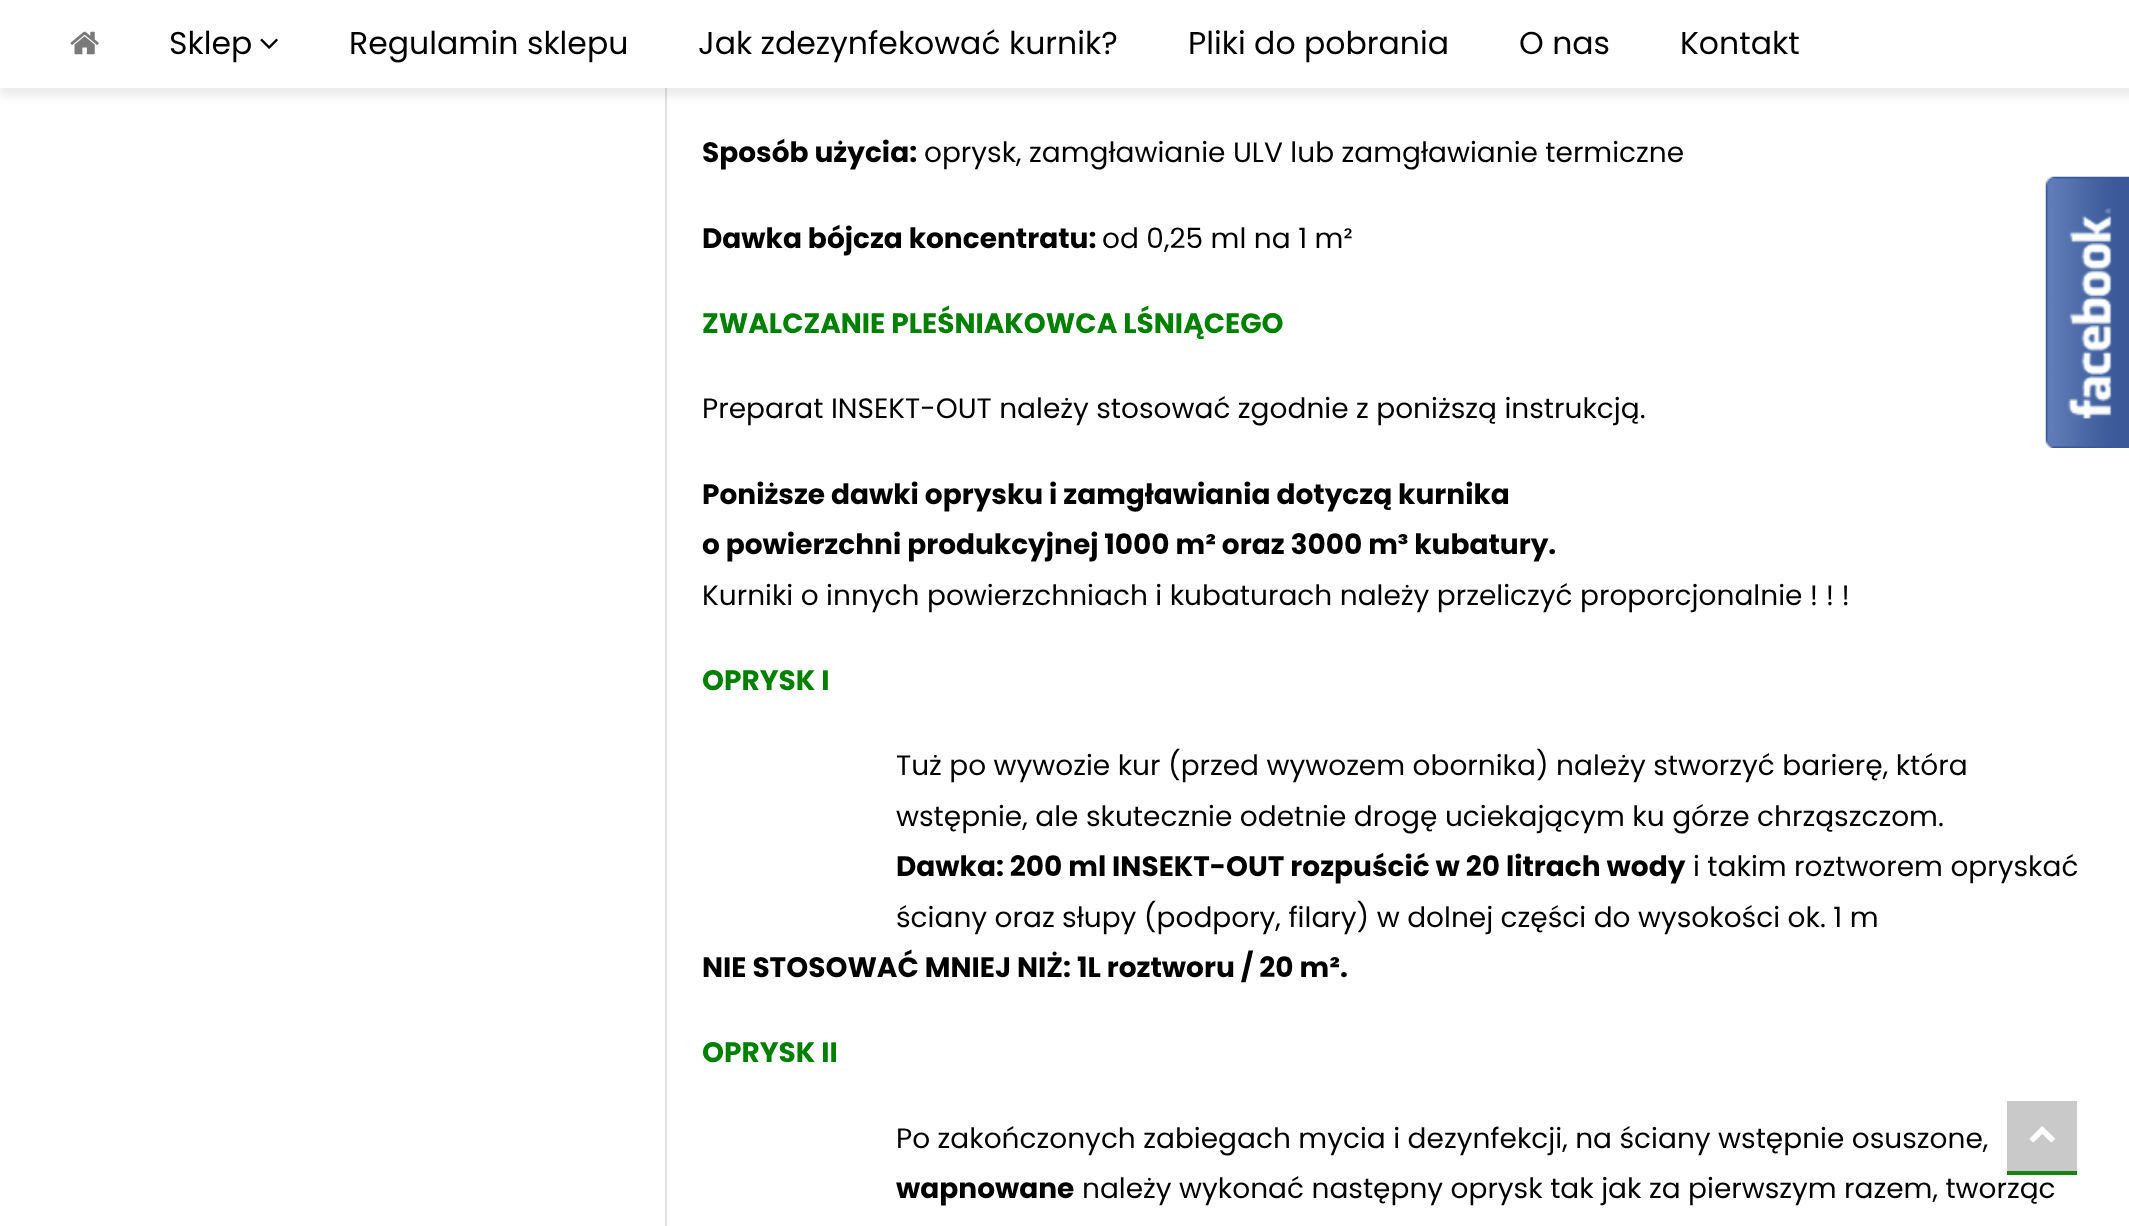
async function draw(canvas) {
	canvas.width = 2129;
	canvas.height = 1226;
	const c = canvas.getContext('2d');
	c.miterLimit = 4;
	c.fontKerning = 'normal';
	async function loadImage(src) {
		const img = new Image();
		img.src = src;
		await img.decode();
		return img;
	}

	c.fillStyle = '#fff';
	c.fillRect(0, 0, 2129, 1226);
	c.strokeStyle = '#e1e1e1';
	c.lineWidth = 2;
	c.strokeRect(666, -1, 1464, 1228);
	c.fillStyle = '#00000014';
	c.filter = 'blur(4.5px)';
	c.beginPath();
	c.rect(0, 9, 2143, 87);
	c.fill();
	c.filter = 'none';
	c.fillStyle = '#fff';
	c.fillRect(0, 0, 2129, 88);
	c.drawImage(await loadImage('img1.png'), 70, 31, 29, 24);
	c.font = '31.5px Poppins';
	c.fillStyle = '#000';
	c.fillText('Sklep', 169, 54);
	c.drawImage(await loadImage('img2.png'), 260, 38, 18, 11);
	for (const [text, x, y] of [
		['Regulamin sklepu', 349, 54],
		['Jak zdezynfekować kurnik?', 698, 54],
		['Pliki do pobrania', 1188, 54],
		['O nas', 1519, 54],
		['Kontakt', 1680, 54],
	]) {
		c.fillText(text, x, y);
	}
	c.font = 'bold 28px Poppins';
	c.fillText('Sposób użycia:', 702, 162);
	c.font = '28px Poppins';
	c.fillText('oprysk, zamgławianie ULV lub zamgławianie termiczne', 924, 162);
	c.font = 'bold 28px Poppins';
	c.fillText('Dawka bójcza koncentratu:', 702, 248);
	c.font = '28px Poppins';
	c.fillText('od 0,25 ml na 1 m²', 1102, 248);
	c.font = 'bold 28px Poppins';
	c.fillStyle = '#008000';
	c.fillText('ZWALCZANIE PLEŚNIAKOWCA LŚNIĄCEGO', 702, 333);
	c.font = '28px Poppins';
	c.fillStyle = '#000';
	c.fillText('Preparat INSEKT-OUT należy stosować zgodnie z poniższą instrukcją.', 702, 418);
	c.font = 'bold 28px Poppins';
	c.fillText('Poniższe dawki oprysku i zamgławiania dotyczą kurnika', 702, 504);
	c.fillText('o powierzchni produkcyjnej 1000 m² oraz 3000 m³ kubatury.', 702, 554);
	c.font = '28px Poppins';
	c.fillText('Kurniki o innych powierzchniach i kubaturach należy przeliczyć proporcjonalnie ! ! !', 702, 605);
	c.font = 'bold 28px Poppins';
	c.fillStyle = '#008000';
	c.fillText('OPRYSK I', 702, 690);
	c.font = '28px Poppins';
	c.fillStyle = '#000';
	c.fillText('Tuż po wywozie kur (przed wywozem obornika) należy stworzyć barierę, która', 896, 775);
	c.fillText('wstępnie, ale skutecznie odetnie drogę uciekającym ku górze chrząszczom.', 896, 826);
	c.font = 'bold 28px Poppins';
	c.fillText('Dawka: 200 ml INSEKT-OUT rozpuścić w 20 litrach wody', 896, 876);
	c.font = '28px Poppins';
	c.fillText('i takim roztworem opryskać', 1693, 876);
	c.fillText('ściany oraz słupy (podpory, filary) w dolnej części do wysokości ok. 1 m', 896, 927);
	c.font = 'bold 28px Poppins';
	c.fillText('NIE STOSOWAĆ MNIEJ NIŻ: 1L roztworu / 20 m².', 702, 977);
	c.fillStyle = '#008000';
	c.fillText('OPRYSK II', 702, 1062);
	c.font = '28px Poppins';
	c.fillStyle = '#000';
	c.fillText('Po zakończonych zabiegach mycia i dezynfekcji, na ściany wstępnie osuszone,', 896, 1148);
	c.font = 'bold 28px Poppins';
	c.fillText('wapnowane', 896, 1198);
	c.font = '28px Poppins';
	c.fillText('należy wykonać następny oprysk tak jak za pierwszym razem, tworząc', 1082, 1198);
	c.fillStyle = '#c9c9c9';
	c.fillRect(2007, 1101, 70, 70);
	c.fillStyle = '#18840e';
	c.fillRect(2007, 1171, 70, 4);
	c.drawImage(await loadImage('img3.png'), 2029, 1126, 26, 17);
	c.drawImage(await loadImage('img4.png'), 2045, 176, 84, 272);
}

draw(document.querySelector('canvas'));
